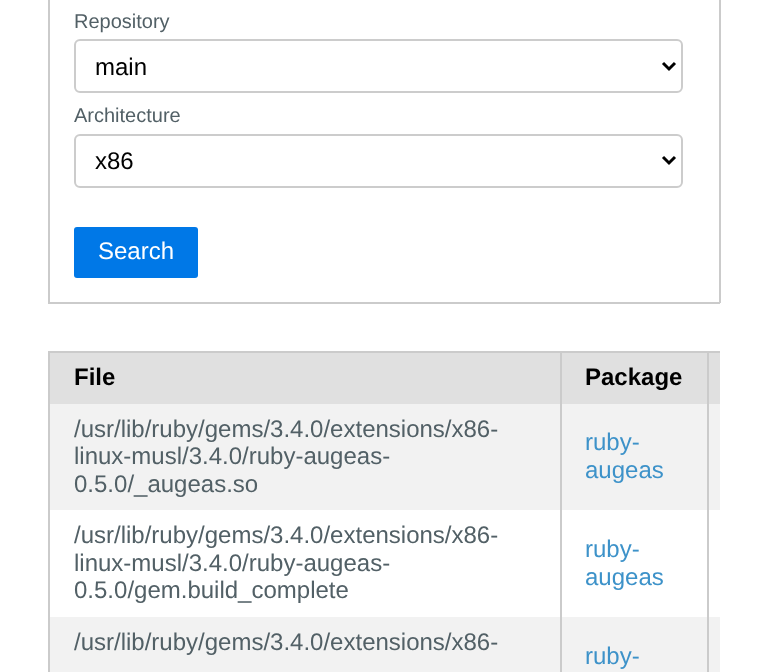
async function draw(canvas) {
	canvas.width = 768;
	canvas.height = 672;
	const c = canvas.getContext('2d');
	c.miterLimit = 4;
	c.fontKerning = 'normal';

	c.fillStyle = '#fff';
	c.fillRect(0, 0, 768, 672);
	for (const [x, y, w, h, color] of [
		[719, 0, 2, 303, '#cbcbcb'],
		[48, 302, 672, 2, '#cbcbcb'],
		[48, 0, 2, 303, '#cbcbcb'],
	]) {
		c.fillStyle = color;
		c.fillRect(x, y, w, h);
	}
	c.font = '20px Liberation Sans';
	c.fillStyle = '#526066';
	c.fillText('Repository', 74, 28);
	c.beginPath();
	c.roundRect(75, 40, 607, 52, 5);
	c.strokeStyle = '#ccc';
	c.lineWidth = 2;
	c.stroke();
	c.beginPath();
	c.moveTo(663, 63);
	c.lineTo(669, 69);
	c.lineTo(675, 63);
	c.strokeStyle = '#000';
	c.lineWidth = 3;
	c.stroke();
	c.font = '24px Liberation Sans';
	c.fillStyle = '#000';
	c.fillText('main', 95, 75);
	c.font = '20px Liberation Sans';
	c.fillStyle = '#526066';
	c.fillText('Architecture', 74, 122);
	c.beginPath();
	c.roundRect(75, 135, 607, 52, 5);
	c.strokeStyle = '#ccc';
	c.lineWidth = 2;
	c.stroke();
	c.beginPath();
	c.moveTo(663, 157);
	c.lineTo(669, 163);
	c.lineTo(675, 157);
	c.strokeStyle = '#000';
	c.lineWidth = 3;
	c.stroke();
	c.font = '24px Liberation Sans';
	c.fillStyle = '#000';
	c.fillText('x86', 95, 169);
	c.fillStyle = '#0078e7';
	c.beginPath();
	c.roundRect(74, 227, 124, 51, 3);
	c.fill();
	c.fillStyle = '#fff';
	c.fillText('Search', 98, 259);
	for (const [x, y, w, h, color] of [
		[48, 351, 672, 2, '#cbcbcb'],
		[48, 351, 2, 321, '#cbcbcb'],
		[50, 353, 670, 51, '#e0e0e0'],
	]) {
		c.fillStyle = color;
		c.fillRect(x, y, w, h);
	}
	c.font = 'bold 24px Liberation Sans';
	c.fillStyle = '#000';
	c.fillText('File', 74, 385);
	c.fillText('Package', 585, 385);
	c.fillStyle = '#f2f2f2';
	c.fillRect(50, 404, 510, 106);
	c.font = '24px Liberation Sans';
	c.fillStyle = '#526066';
	for (const [text, x, y] of [
		['/usr/lib/ruby/gems/3.4.0/extensions/x86-', 74, 437],
		['linux-musl/3.4.0/ruby-augeas-', 74, 464],
		['0.5.0/_augeas.so', 74, 492],
	]) {
		c.fillText(text, x, y);
	}
	c.fillStyle = '#f2f2f2';
	c.fillRect(562, 404, 145, 106);
	c.fillStyle = '#3d92c9';
	c.fillText('ruby-', 585, 450);
	c.fillText('augeas', 585, 478);
	c.fillStyle = '#f2f2f2';
	c.fillRect(709, 404, 11, 106);
	c.fillStyle = '#526066';
	for (const [text, x, y] of [
		['/usr/lib/ruby/gems/3.4.0/extensions/x86-', 74, 543],
		['linux-musl/3.4.0/ruby-augeas-', 74, 571],
		['0.5.0/gem.build_complete', 74, 598],
	]) {
		c.fillText(text, x, y);
	}
	c.fillStyle = '#3d92c9';
	c.fillText('ruby-', 585, 557);
	c.fillText('augeas', 585, 585);
	c.fillStyle = '#f2f2f2';
	c.fillRect(50, 617, 510, 55);
	c.fillStyle = '#526066';
	c.fillText('/usr/lib/ruby/gems/3.4.0/extensions/x86-', 74, 650);
	for (const [x, y, w, h, color] of [
		[709, 617, 11, 55, '#f2f2f2'],
		[707, 351, 2, 321, '#cbcbcb'],
		[562, 617, 145, 55, '#f2f2f2'],
		[560, 351, 2, 321, '#cbcbcb'],
	]) {
		c.fillStyle = color;
		c.fillRect(x, y, w, h);
	}
	c.fillStyle = '#3d92c9';
	c.fillText('ruby-', 585, 664);
}

draw(document.querySelector('canvas'));
